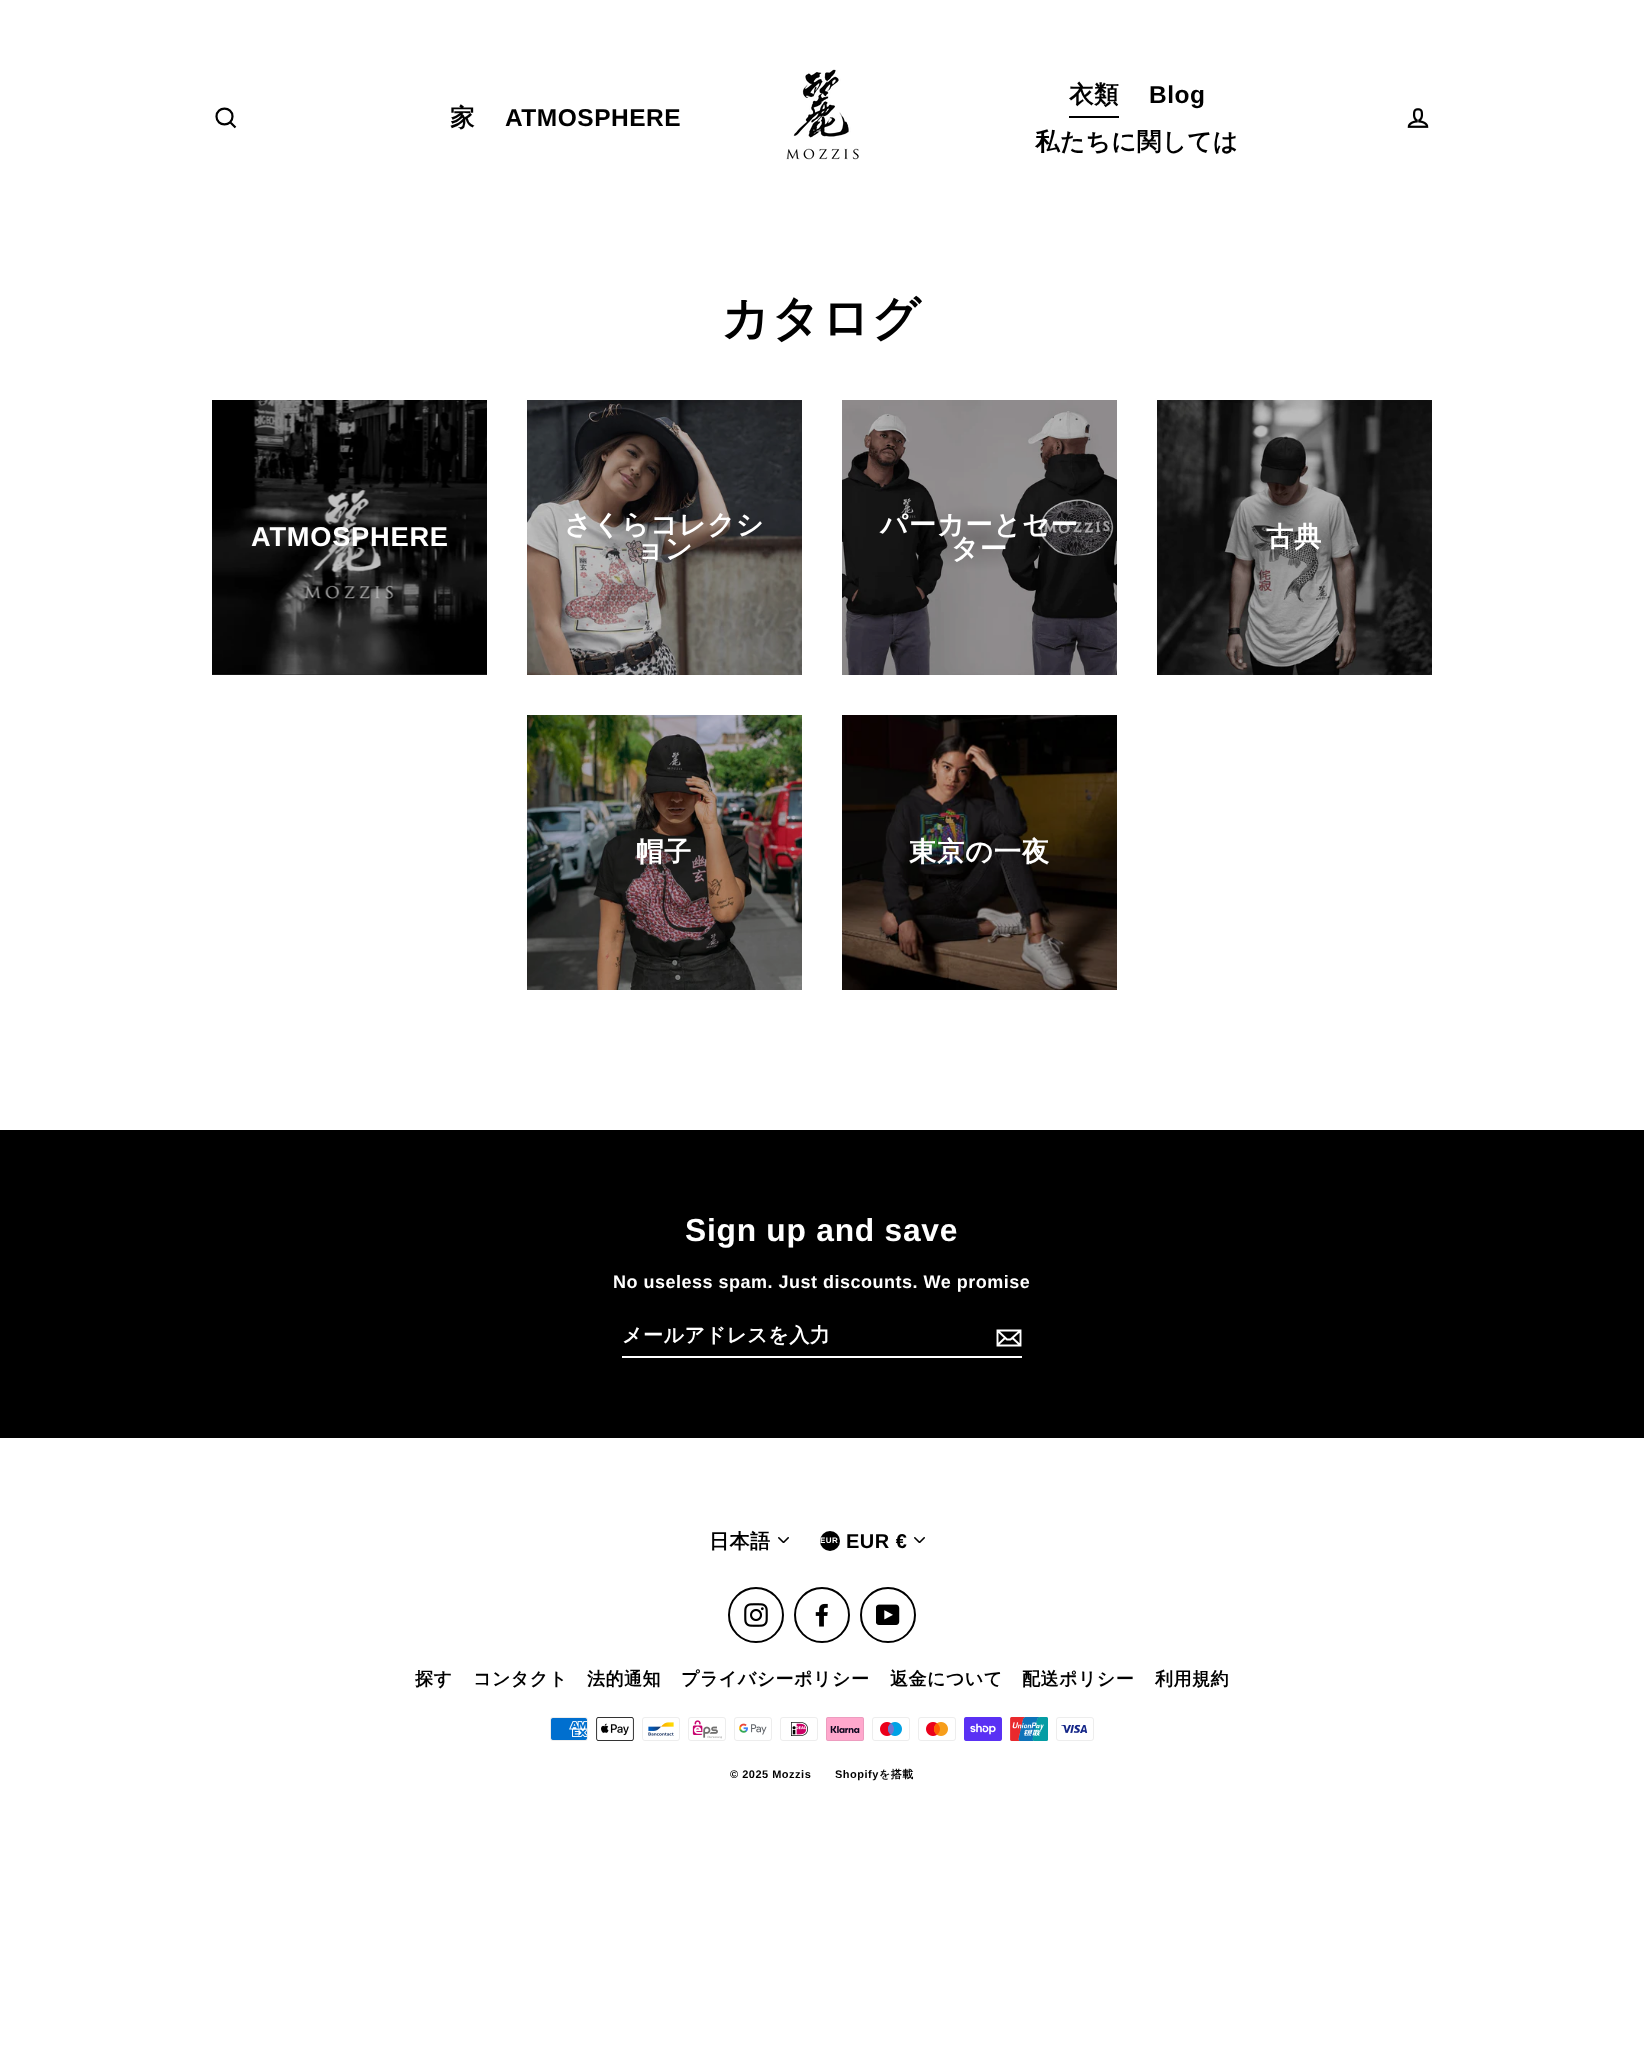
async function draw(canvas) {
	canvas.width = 1644;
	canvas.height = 2055;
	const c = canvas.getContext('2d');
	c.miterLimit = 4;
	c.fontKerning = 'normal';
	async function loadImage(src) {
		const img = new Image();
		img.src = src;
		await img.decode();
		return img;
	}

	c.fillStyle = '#fff';
	c.fillRect(0, 0, 1644, 2055);
	c.beginPath();
	c.moveTo(232.5, 116.5);
	c.bezierCurveTo(232.5, 127, 216.5, 127, 216.5, 116.5);
	c.bezierCurveTo(216.5, 106, 232.5, 106, 232.5, 116.5);
	c.closePath();
	c.moveTo(235.5, 127.5);
	c.lineTo(230.5, 122.5);
	c.strokeStyle = '#000';
	c.lineWidth = 2.2;
	c.stroke();
	c.letterSpacing = '0.5px';
	c.font = 'bold 24.5px WenQuanYi Zen Hei';
	c.fillStyle = '#000';
	c.fillText('家', 450, 126);
	c.font = 'bold 24.5px Arimo';
	c.fillText('ATMOSPHERE', 505, 126);
	c.drawImage(await loadImage('img1.png'), 786, 69, 73, 91);
	c.font = 'bold 24.5px WenQuanYi Zen Hei';
	c.fillText('衣類', 1069, 103);
	c.fillRect(1069, 116, 50, 2);
	c.font = 'bold 24.5px Arimo';
	c.fillText('Blog', 1149, 103);
	c.font = 'bold 24.5px WenQuanYi Zen Hei';
	c.fillText('私たちに関しては', 1035, 150);
	c.drawImage(await loadImage('img2.png'), 1407, 108, 22, 20);
	c.letterSpacing = '1px';
	c.font = 'bold 48px WenQuanYi Zen Hei';
	c.fillText('カタログ', 721, 335);
	c.drawImage(await loadImage('img3.png'), 212, 400, 275, 275);
	c.letterSpacing = '0.75px';
	c.font = 'bold 27.25px Arimo';
	c.fillStyle = '#fff';
	c.fillText('ATMOSPHERE', 251, 546);
	c.drawImage(await loadImage('img4.png'), 527, 400, 275, 275);
	c.font = 'bold 27.25px WenQuanYi Zen Hei';
	c.fillText('さくらコレクシ', 564, 534);
	c.fillText('ョン', 636, 558);
	c.drawImage(await loadImage('img5.png'), 842, 400, 275, 275);
	c.fillText('パーカーとセー', 880, 534);
	c.fillText('ター', 951, 558);
	c.drawImage(await loadImage('img6.png'), 1157, 400, 275, 275);
	c.fillText('古典', 1266, 546);
	c.drawImage(await loadImage('img7.png'), 527, 715, 275, 275);
	c.fillText('帽子', 636, 861);
	c.drawImage(await loadImage('img8.png'), 842, 715, 275, 275);
	c.fillText('東京の一夜', 909, 861);
	c.fillStyle = '#000';
	c.fillRect(0, 1130, 1644, 308);
	c.font = 'bold 31.75px Arimo';
	c.fillStyle = '#fff';
	c.fillText('Sign up and save', 685, 1241);
	c.letterSpacing = '0.5px';
	c.font = 'bold 18px Arimo';
	c.fillText('No useless spam. Just discounts. We promise', 613, 1288);
	c.fillRect(622, 1356, 400, 2);
	c.font = 'bold 20px WenQuanYi Zen Hei';
	c.fillText('メールアドレスを入力', 622, 1342);
	c.beginPath();
	c.moveTo(1020.5, 1345.5);
	c.lineTo(997.5, 1345.5);
	c.lineTo(997.5, 1330.5);
	c.lineTo(1020.5, 1330.5);
	c.closePath();
	c.moveTo(997.5, 1330.5);
	c.lineTo(1007, 1339.5);
	c.lineTo(1010.5, 1339.5);
	c.lineTo(1020.5, 1330.5);
	c.moveTo(1005, 1338);
	c.lineTo(997.5, 1345);
	c.moveTo(1020.5, 1345.5);
	c.lineTo(1012.5, 1338);
	c.strokeStyle = '#fff';
	c.lineWidth = 1.9;
	c.stroke();
	c.drawImage(await loadImage('img9.png'), 778, 1537, 11, 6);
	c.fillStyle = '#000';
	c.fillText('日本語', 709, 1548);
	c.drawImage(await loadImage('img9.png'), 914, 1537, 11, 6);
	c.beginPath();
	c.arc(830, 1541, 10, 0, 2 * Math.PI);
	c.fill();
	c.font = 'bold 8px Arimo';
	c.fillStyle = '#fff';
	c.fillText('EUR', 820, 1543);
	c.font = 'bold 20px Arimo';
	c.fillStyle = '#000';
	c.fillText('EUR €', 846, 1548);
	c.beginPath();
	c.arc(756, 1615, 27, 0, 2 * Math.PI);
	c.strokeStyle = '#000';
	c.lineWidth = 2;
	c.stroke();
	c.drawImage(await loadImage('img10.png'), 744, 1603, 24, 24);
	c.beginPath();
	c.arc(822, 1615, 27, 0, 2 * Math.PI);
	c.stroke();
	c.drawImage(await loadImage('img11.png'), 815, 1603, 13, 24);
	c.beginPath();
	c.arc(888, 1615, 27, 0, 2 * Math.PI);
	c.stroke();
	c.drawImage(await loadImage('img12.png'), 876, 1604, 24, 21);
	c.font = 'bold 18px WenQuanYi Zen Hei';
	for (const [text, x, y] of [
		['探す', 415, 1685],
		['コンタクト', 473, 1685],
		['法的通知', 587, 1685],
		['プライバシーポリシー', 681, 1685],
		['返金について', 890, 1685],
		['配送ポリシー', 1022, 1685],
		['利用規約', 1155, 1685],
	]) {
		c.fillText(text, x, y);
	}
	c.drawImage(await loadImage('img13.png'), 550, 1717, 38, 24);
	c.drawImage(await loadImage('img14.png'), 596, 1717, 38, 24);
	c.drawImage(await loadImage('img15.png'), 642, 1717, 38, 24);
	c.drawImage(await loadImage('img16.png'), 688, 1717, 38, 24);
	c.drawImage(await loadImage('img17.png'), 734, 1717, 38, 24);
	c.drawImage(await loadImage('img18.png'), 780, 1717, 38, 24);
	c.drawImage(await loadImage('img19.png'), 826, 1717, 38, 24);
	c.drawImage(await loadImage('img20.png'), 872, 1717, 38, 24);
	c.drawImage(await loadImage('img21.png'), 918, 1717, 38, 24);
	c.drawImage(await loadImage('img22.png'), 964, 1717, 38, 24);
	c.drawImage(await loadImage('img23.png'), 1010, 1717, 38, 24);
	c.drawImage(await loadImage('img24.png'), 1056, 1717, 38, 24);
	c.font = 'bold 11px Arimo';
	c.fillText('© 2025 Mozzis', 730, 1778);
	c.fillText('Shopify', 835, 1778);
	c.font = 'bold 11px WenQuanYi Zen Hei';
	c.fillText('を搭載', 879, 1778);
}

draw(document.querySelector('canvas'));
